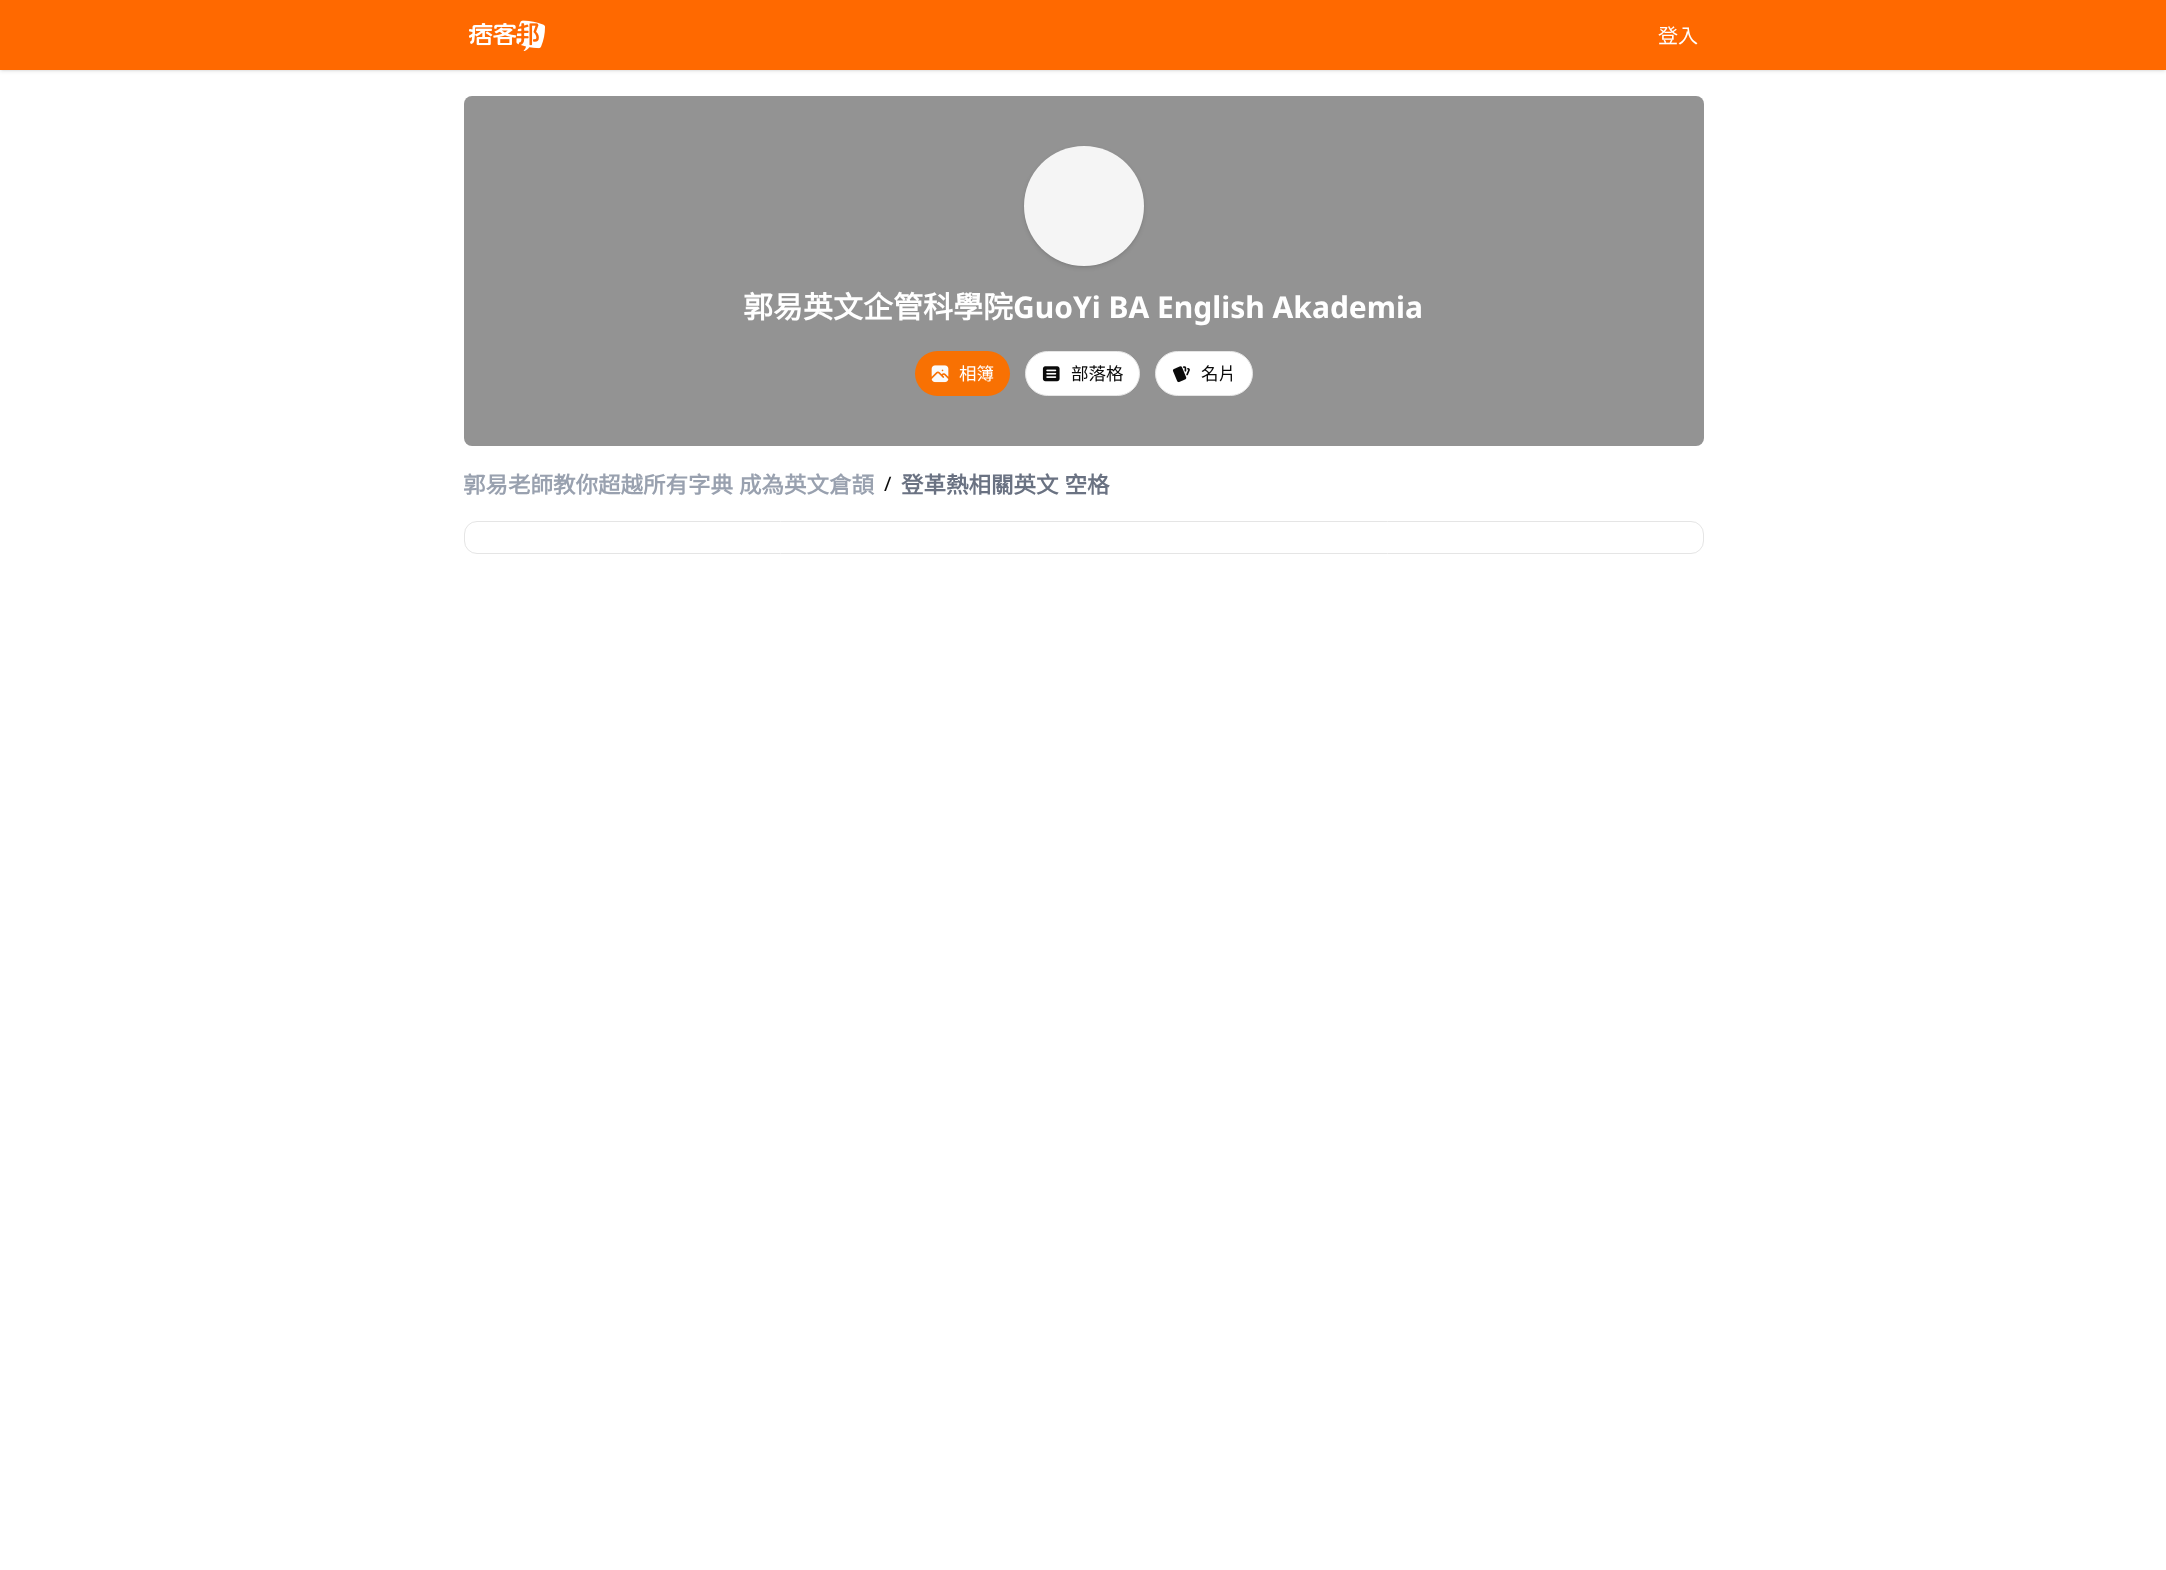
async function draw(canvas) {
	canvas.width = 2166;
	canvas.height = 1570;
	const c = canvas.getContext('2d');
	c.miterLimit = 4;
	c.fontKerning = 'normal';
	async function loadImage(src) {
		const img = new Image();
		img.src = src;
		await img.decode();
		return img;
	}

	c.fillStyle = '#fff';
	c.fillRect(0, 0, 2166, 1570);
	c.fillStyle = '#0000001a';
	c.filter = 'blur(1px)';
	c.beginPath();
	c.rect(1, 3, 2164, 67);
	c.fill();
	c.filter = 'none';
	c.filter = 'blur(2px)';
	c.beginPath();
	c.rect(0, 1, 2166, 70);
	c.fill();
	c.filter = 'none';
	c.fillStyle = '#ff6900';
	c.fillRect(0, 0, 2166, 70);
	c.drawImage(await loadImage('img1.png'), 469, 20, 76, 31);
	c.font = '20px Noto Sans CJK TC';
	c.fillStyle = '#fff';
	c.fillText('登入', 1658, 43);
	c.fillStyle = '#f5f5f5';
	c.beginPath();
	c.roundRect(464, 96, 1240, 350, 8);
	c.fill();
	c.fillStyle = '#00000066';
	c.beginPath();
	c.roundRect(464, 96, 1240, 350, 8);
	c.fill();
	c.fillStyle = '#0000001a';
	c.filter = 'blur(1px)';
	c.beginPath();
	c.roundRect(1025, 149, 118, 117, 58.5);
	c.fill();
	c.filter = 'none';
	c.filter = 'blur(2px)';
	c.beginPath();
	c.roundRect(1024, 148, 120, 120, 60);
	c.fill();
	c.filter = 'none';
	c.fillStyle = '#f5f5f5';
	c.beginPath();
	c.arc(1084, 206, 60, 0, 2 * Math.PI);
	c.fill();
	c.font = 'bold 30px Noto Sans CJK TC';
	c.fillStyle = '#fff';
	c.fillText('郭易英文企管科學院', 743, 318);
	c.font = 'bold 30px Noto Sans';
	c.fillText('GuoYi BA English Akademia', 1013, 318);
	c.fillStyle = '#f87103';
	c.beginPath();
	c.roundRect(915, 351, 95, 45, 22.5);
	c.fill();
	c.drawImage(await loadImage('img2.png'), 931, 365, 18, 18);
	c.font = '17.5px Noto Sans CJK TC';
	c.fillStyle = '#fff';
	c.fillText('相簿', 959, 380);
	c.beginPath();
	c.roundRect(1025.5, 351.5, 114, 44, 22);
	c.fill();
	c.strokeStyle = '#e5e5e5';
	c.stroke();
	c.drawImage(await loadImage('img3.png'), 1042, 366, 18, 16);
	c.fillStyle = '#0a0a0a';
	c.fillText('部落格', 1071, 380);
	c.fillStyle = '#fff';
	c.beginPath();
	c.roundRect(1155.5, 351.5, 97, 44, 22);
	c.fill();
	c.stroke();
	c.drawImage(await loadImage('img4.png'), 1172, 366, 18, 17);
	c.fillStyle = '#0a0a0a';
	c.fillText('名片', 1201, 380);
	c.wordSpacing = '1px';
	c.font = 'bold 22.5px Noto Sans CJK TC';
	c.fillStyle = '#99a1af';
	c.fillText('郭易老師教你超越所有字典 成為英文倉頡', 463, 493);
	c.wordSpacing = '0px';
	c.font = '20px Noto Sans';
	c.fillStyle = '#0a0a0a';
	c.fillText('/', 884, 491);
	c.wordSpacing = '1px';
	c.font = 'bold 22.5px Noto Sans CJK TC';
	c.fillStyle = '#6a7282';
	c.fillText('登革熱相關英文 空格', 901, 493);
	c.beginPath();
	c.roundRect(464.5, 521.5, 1239, 32, 12.5);
	c.stroke();
}

draw(document.querySelector('canvas'));
